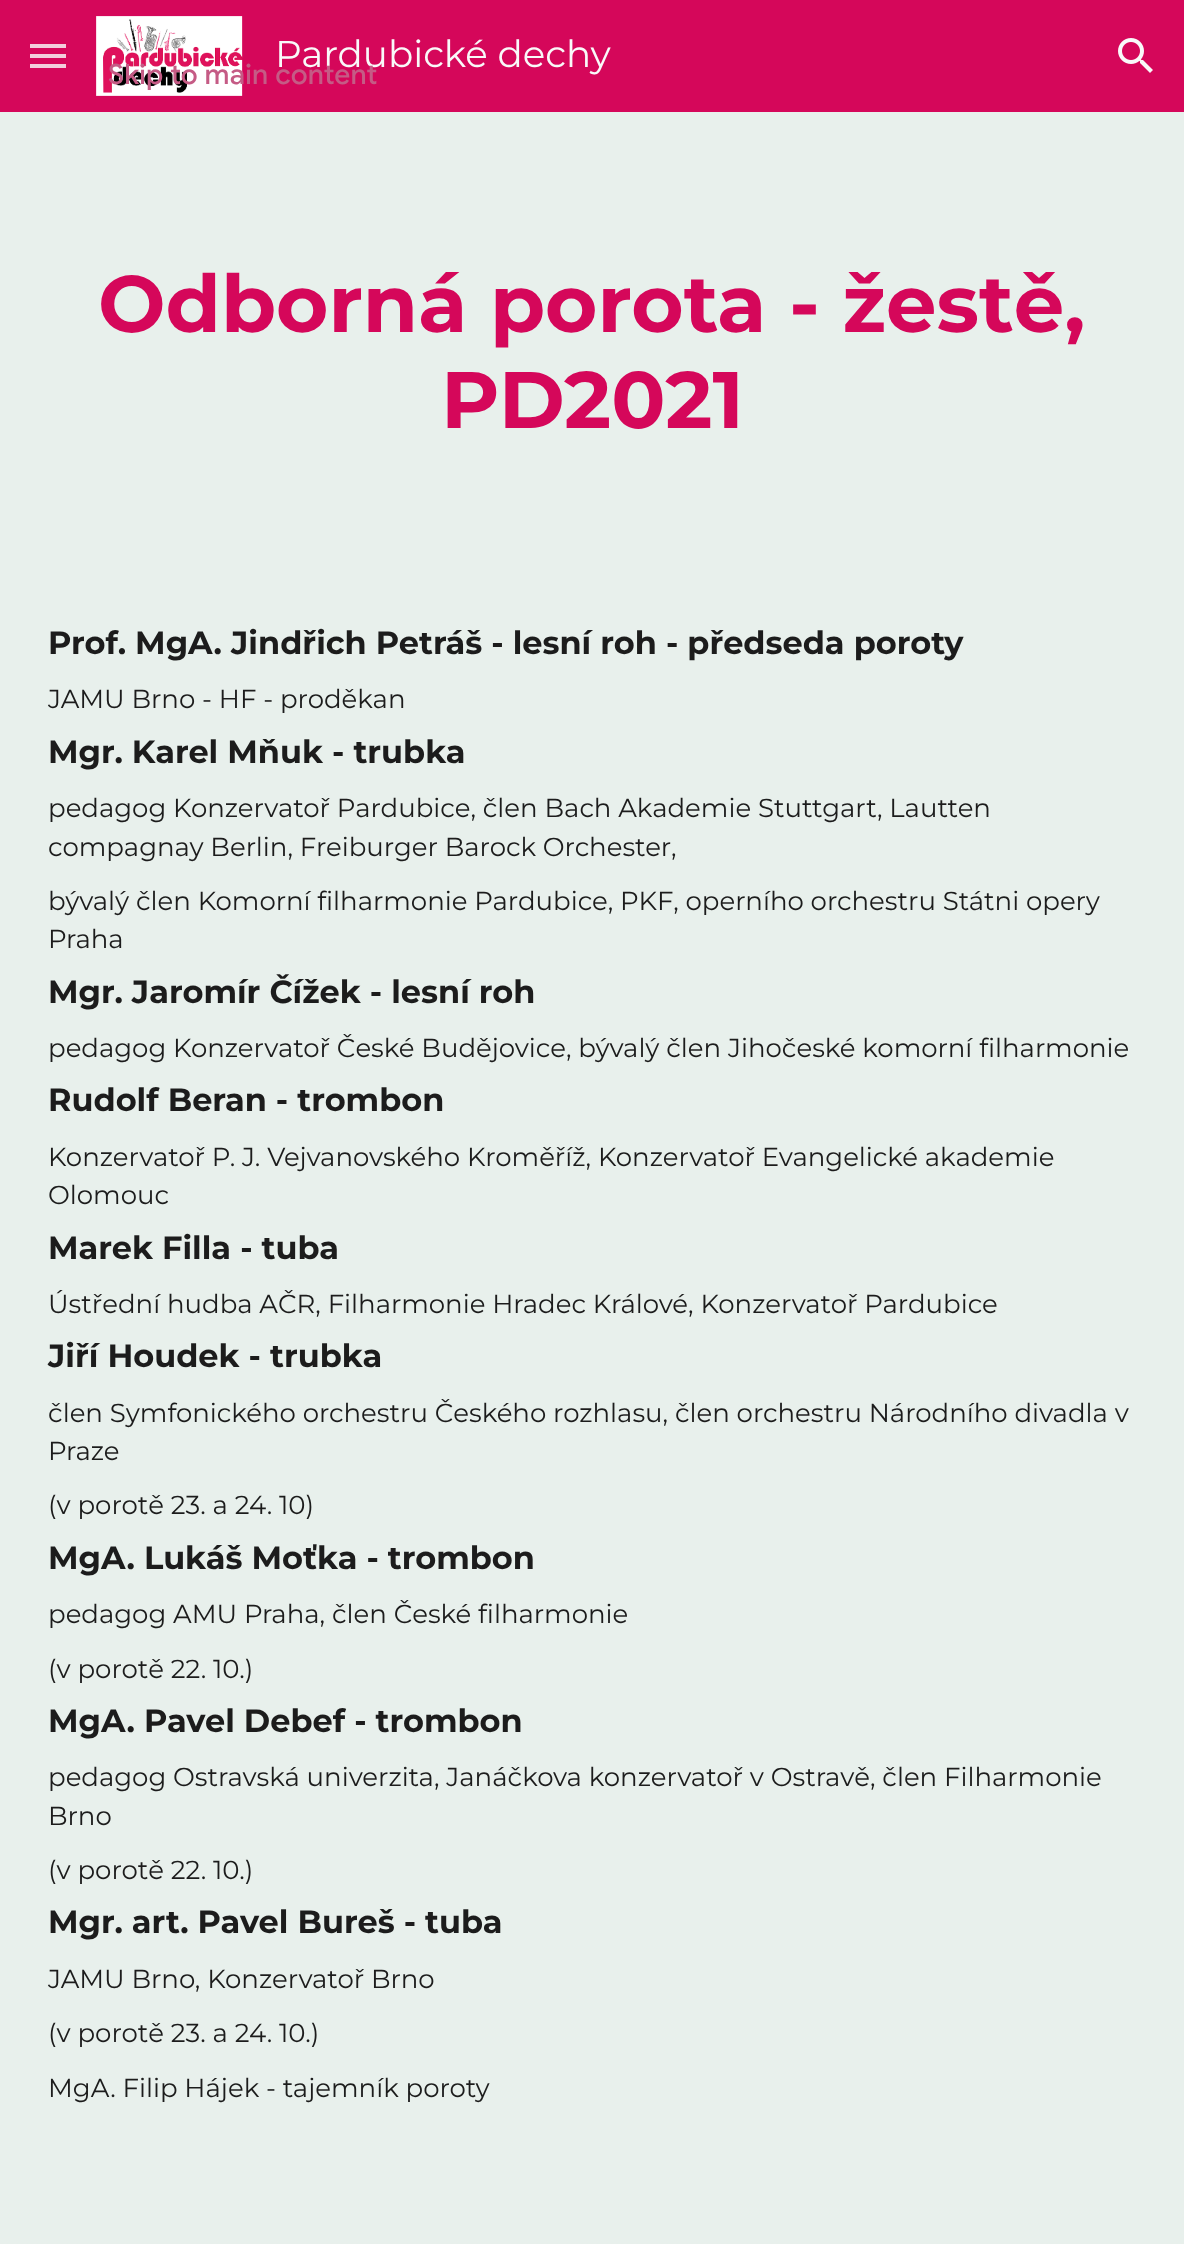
async function draw(canvas) {
	canvas.width = 1184;
	canvas.height = 2244;
	const c = canvas.getContext('2d');
	c.miterLimit = 4;
	c.fontKerning = 'normal';
	async function loadImage(src) {
		const img = new Image();
		img.src = src;
		await img.decode();
		return img;
	}

	c.fillStyle = '#e8f0ec';
	c.fillRect(0, 0, 1184, 2244);
	for (const [x, y, w, h, color] of [
		[0, 0, 1184, 112, '#d5075a'],
		[30, 44, 36, 4, '#f3cddc'],
		[30, 54, 36, 4, '#f3cddc'],
		[30, 64, 36, 4, '#f3cddc'],
	]) {
		c.fillStyle = color;
		c.fillRect(x, y, w, h);
	}
	c.drawImage(await loadImage('img1.png'), 96, 16, 147, 80);
	c.font = '37.25px Montserrat';
	c.fillStyle = '#f9f9f9';
	c.fillText('Pardubické dechy', 275, 67);
	c.drawImage(await loadImage('img2.png'), 1118, 38, 35, 35);
	c.font = 'bold 80px Montserrat';
	c.fillStyle = '#d5075a';
	c.fillText('Odborná porota - žestě,', 98, 332);
	c.fillText('PD2021', 441, 428);
	c.font = 'bold 32px Montserrat';
	c.fillStyle = '#1c1c1c';
	c.fillText('Prof. MgA. Jindřich Petráš - lesní roh - předseda poroty', 48, 654);
	c.font = '26px Montserrat';
	c.fillText('JAMU Brno - HF - proděkan', 48, 708);
	c.font = 'bold 32px Montserrat';
	c.fillText('Mgr. Karel Mňuk - trubka', 48, 763);
	c.font = '26px Montserrat';
	for (const [text, x, y] of [
		['pedagog Konzervatoř Pardubice, člen Bach Akademie Stuttgart, Lautten', 48, 817],
		['compagnay Berlin, Freiburger Barock Orchester,', 48, 856],
		['bývalý člen Komorní filharmonie Pardubice, PKF, operního orchestru Státni opery', 48, 910],
		['Praha', 48, 948],
	]) {
		c.fillText(text, x, y);
	}
	c.font = 'bold 32px Montserrat';
	c.fillText('Mgr. Jaromír Čížek - lesní roh', 48, 1003);
	c.font = '26px Montserrat';
	c.fillText('pedagog Konzervatoř České Budějovice, bývalý člen Jihočeské komorní filharmonie', 48, 1057);
	c.font = 'bold 32px Montserrat';
	c.fillText('Rudolf Beran - trombon', 48, 1111);
	c.font = '26px Montserrat';
	c.fillText('Konzervatoř P. J. Vejvanovského Kroměříž, Konzervatoř Evangelické akademie', 48, 1166);
	c.fillText('Olomouc', 48, 1204);
	c.font = 'bold 32px Montserrat';
	c.fillText('Marek Filla - tuba', 48, 1259);
	c.font = '26px Montserrat';
	c.fillText('Ústřední hudba AČR, Filharmonie Hradec Králové, Konzervatoř Pardubice', 48, 1313);
	c.font = 'bold 32px Montserrat';
	c.fillText('Jiří Houdek - trubka', 48, 1367);
	c.font = '26px Montserrat';
	for (const [text, x, y] of [
		['člen Symfonického orchestru Českého rozhlasu, člen orchestru Národního divadla v', 48, 1422],
		['Praze', 48, 1460],
		['(v porotě 23. a 24. 10)', 48, 1514],
	]) {
		c.fillText(text, x, y);
	}
	c.font = 'bold 32px Montserrat';
	c.fillText('MgA. Lukáš Moťka - trombon', 48, 1569);
	c.font = '26px Montserrat';
	c.fillText('pedagog AMU Praha, člen České filharmonie', 48, 1623);
	c.fillText('(v porotě 22. 10.)', 48, 1678);
	c.font = 'bold 32px Montserrat';
	c.fillText('MgA. Pavel Debef - trombon', 48, 1732);
	c.font = '26px Montserrat';
	for (const [text, x, y] of [
		['pedagog Ostravská univerzita, Janáčkova konzervatoř v Ostravě, člen Filharmonie', 48, 1786],
		['Brno', 48, 1825],
		['(v porotě 22. 10.)', 48, 1879],
	]) {
		c.fillText(text, x, y);
	}
	c.font = 'bold 32px Montserrat';
	c.fillText('Mgr. art. Pavel Bureš - tuba', 48, 1933);
	c.font = '26px Montserrat';
	for (const [text, x, y] of [
		['JAMU Brno, Konzervatoř Brno', 48, 1988],
		['(v porotě 23. a 24. 10.)', 48, 2042],
		['MgA. Filip Hájek - tajemník poroty', 48, 2097],
	]) {
		c.fillText(text, x, y);
	}
	c.letterSpacing = '0.25px';
	c.font = '500 28px Google Sans';
	c.fillStyle = '#c55b85';
	c.fillText('Skip to main content', 108, 84);
}

draw(document.querySelector('canvas'));
